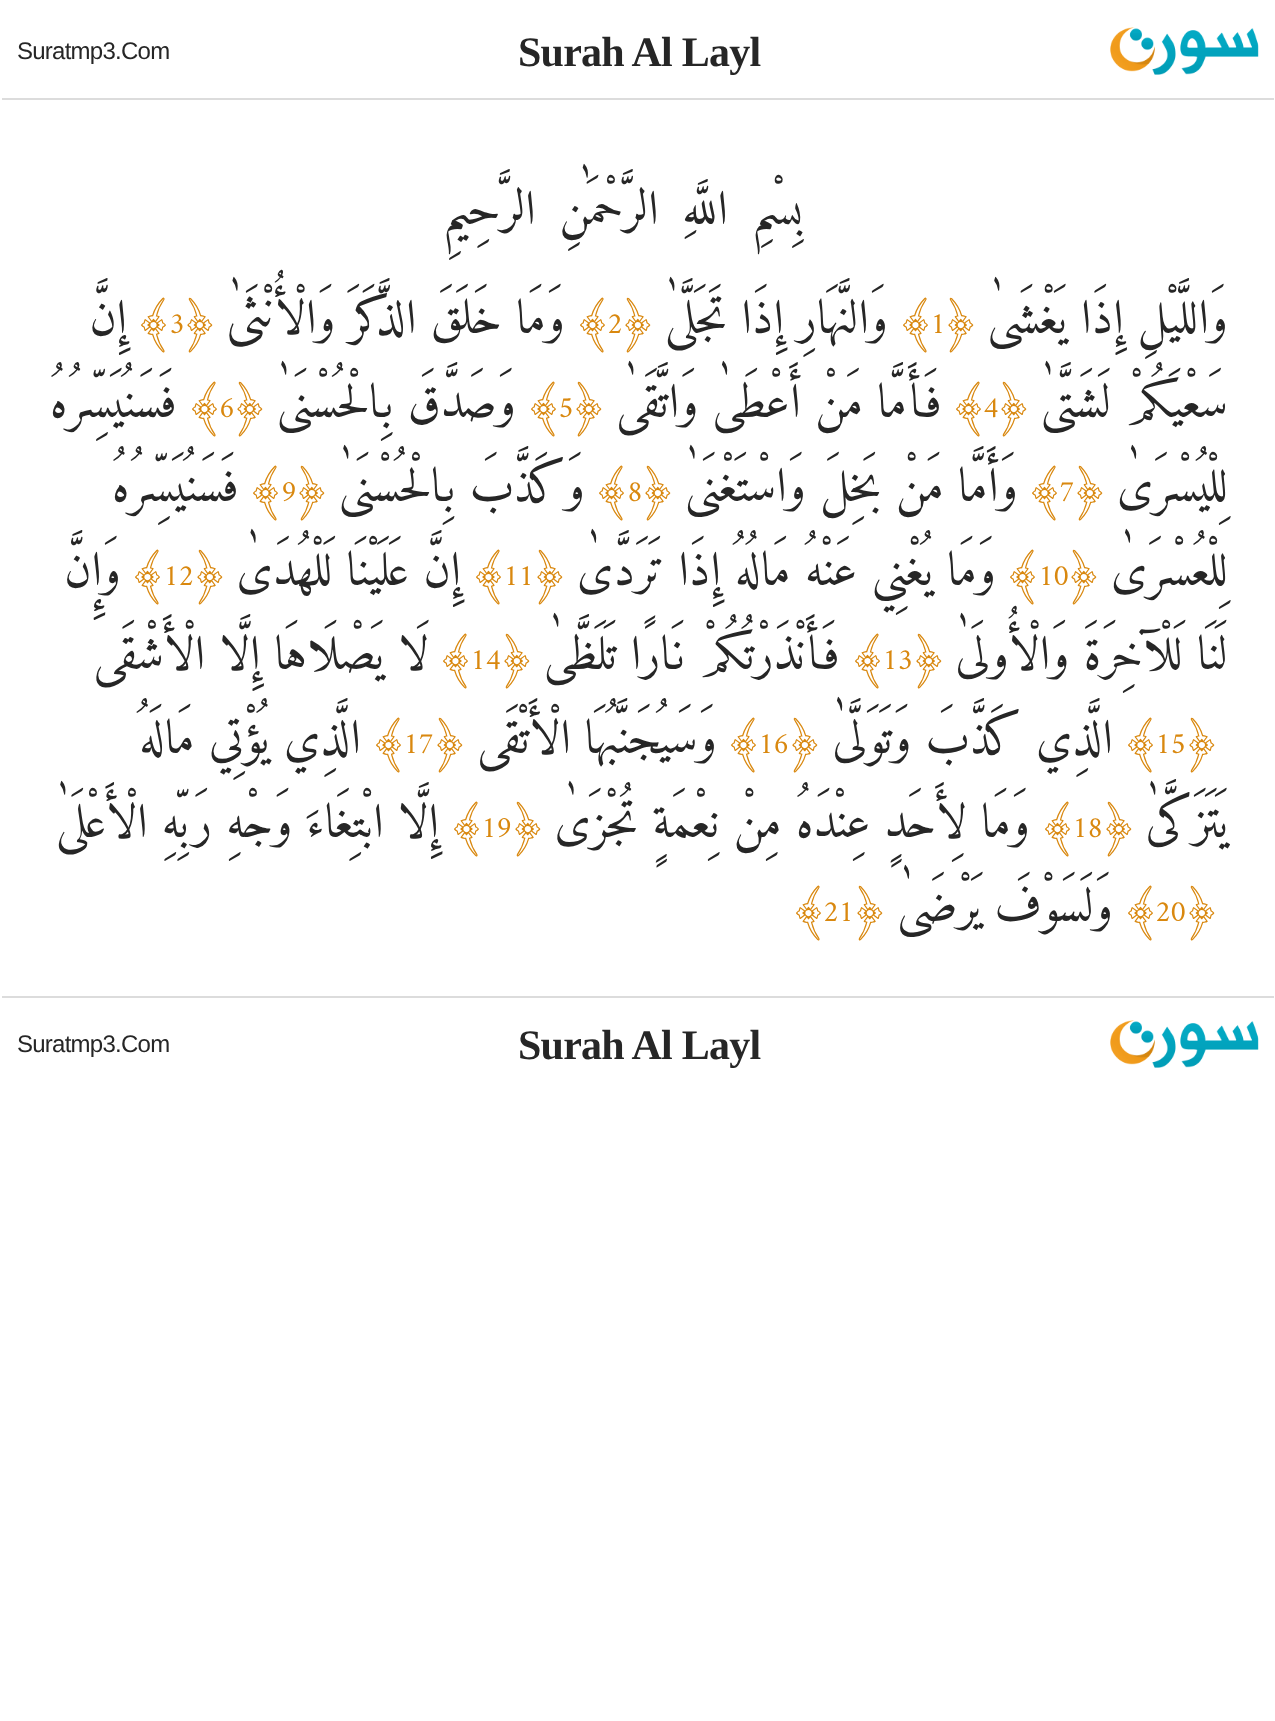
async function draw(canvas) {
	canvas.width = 1275;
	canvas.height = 1721;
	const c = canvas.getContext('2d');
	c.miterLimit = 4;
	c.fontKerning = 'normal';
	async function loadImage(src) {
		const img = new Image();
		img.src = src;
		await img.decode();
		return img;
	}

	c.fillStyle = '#fff';
	c.fillRect(0, 0, 1275, 1721);
	c.drawImage(await loadImage('img1.png'), 1110, 27, 149, 48);
	c.letterSpacing = '-0.75px';
	c.font = 'bold 42px Liberation Serif';
	c.fillStyle = '#262626';
	c.fillText('Surah Al Layl', 518, 66);
	c.font = '24px Liberation Sans';
	c.fillText('Suratmp3.Com', 17, 59);
	c.fillStyle = '#dcdcdc';
	c.fillRect(2, 98, 1272, 2);
	c.fillRect(2, 996, 1272, 2);
	c.wordSpacing = '9.5px';
	c.direction = 'rtl';
	c.font = '48px Amiri';
	c.fillStyle = '#262626';
	c.fillText('بِسْمِ اللَّهِ الرَّحْمَٰنِ الرَّحِيمِ', 803, 224);
	c.letterSpacing = '0px';
	c.wordSpacing = '0px';
	c.fillText('وَاللَّيْلِ إِذَا يَغْشَىٰ', 1228, 333);
	c.letterSpacing = '-0.75px';
	c.direction = 'ltr';
	c.fillStyle = '#d9880f';
	c.fillText('﴿', 946, 333);
	c.font = '30px Amiri';
	c.fillText('1', 930, 333);
	c.font = '48px Amiri';
	c.fillText('﴾', 896, 333);
	c.letterSpacing = '0px';
	c.direction = 'rtl';
	c.fillStyle = '#262626';
	c.fillText('وَالنَّهَارِ إِذَا تَجَلَّىٰ', 888, 333);
	c.letterSpacing = '-0.75px';
	c.direction = 'ltr';
	c.fillStyle = '#d9880f';
	c.fillText('﴿', 623, 333);
	c.font = '30px Amiri';
	c.fillText('2', 607, 333);
	c.font = '48px Amiri';
	c.fillText('﴾', 573, 333);
	c.letterSpacing = '0px';
	c.direction = 'rtl';
	c.fillStyle = '#262626';
	c.fillText('وَمَا خَلَقَ الذَّكَرَ وَالْأُنْثَىٰ', 565, 333);
	c.letterSpacing = '-0.75px';
	c.direction = 'ltr';
	c.fillStyle = '#d9880f';
	c.fillText('﴿', 185, 333);
	c.font = '30px Amiri';
	c.fillText('3', 169, 333);
	c.font = '48px Amiri';
	c.fillText('﴾', 134, 333);
	c.letterSpacing = '0px';
	c.direction = 'rtl';
	c.fillStyle = '#262626';
	c.fillText('إِنَّ', 127, 333);
	c.fillText('سَعْيَكُمْ لَشَتَّىٰ', 1228, 417);
	c.letterSpacing = '-0.75px';
	c.direction = 'ltr';
	c.fillStyle = '#d9880f';
	c.fillText('﴿', 999, 417);
	c.font = '30px Amiri';
	c.fillText('4', 983, 417);
	c.font = '48px Amiri';
	c.fillText('﴾', 949, 417);
	c.letterSpacing = '0px';
	c.direction = 'rtl';
	c.fillStyle = '#262626';
	c.fillText('فَأَمَّا مَنْ أَعْطَىٰ وَاتَّقَىٰ', 942, 417);
	c.letterSpacing = '-0.75px';
	c.direction = 'ltr';
	c.fillStyle = '#d9880f';
	c.fillText('﴿', 574, 417);
	c.font = '30px Amiri';
	c.fillText('5', 558, 417);
	c.font = '48px Amiri';
	c.fillText('﴾', 524, 417);
	c.letterSpacing = '0px';
	c.direction = 'rtl';
	c.fillStyle = '#262626';
	c.fillText('وَصَدَّقَ بِالْحُسْنَىٰ', 516, 417);
	c.letterSpacing = '-0.75px';
	c.direction = 'ltr';
	c.fillStyle = '#d9880f';
	c.fillText('﴿', 235, 417);
	c.font = '30px Amiri';
	c.fillText('6', 219, 417);
	c.font = '48px Amiri';
	c.fillText('﴾', 185, 417);
	c.letterSpacing = '0px';
	c.direction = 'rtl';
	c.fillStyle = '#262626';
	c.fillText('فَسَنُيَسِّرُهُ', 177, 417);
	c.fillText('لِلْيُسْرَىٰ', 1228, 501);
	c.letterSpacing = '-0.75px';
	c.direction = 'ltr';
	c.fillStyle = '#d9880f';
	c.fillText('﴿', 1075, 501);
	c.font = '30px Amiri';
	c.fillText('7', 1059, 501);
	c.font = '48px Amiri';
	c.fillText('﴾', 1025, 501);
	c.letterSpacing = '0px';
	c.direction = 'rtl';
	c.fillStyle = '#262626';
	c.fillText('وَأَمَّا مَنْ بَخِلَ وَاسْتَغْنَىٰ', 1018, 501);
	c.letterSpacing = '-0.75px';
	c.direction = 'ltr';
	c.fillStyle = '#d9880f';
	c.fillText('﴿', 643, 501);
	c.font = '30px Amiri';
	c.fillText('8', 627, 501);
	c.font = '48px Amiri';
	c.fillText('﴾', 592, 501);
	c.letterSpacing = '0px';
	c.direction = 'rtl';
	c.fillStyle = '#262626';
	c.fillText('وَكَذَّبَ بِالْحُسْنَىٰ', 585, 501);
	c.letterSpacing = '-0.75px';
	c.direction = 'ltr';
	c.fillStyle = '#d9880f';
	c.fillText('﴿', 297, 501);
	c.font = '30px Amiri';
	c.fillText('9', 281, 501);
	c.font = '48px Amiri';
	c.fillText('﴾', 246, 501);
	c.letterSpacing = '0px';
	c.direction = 'rtl';
	c.fillStyle = '#262626';
	c.fillText('فَسَنُيَسِّرُهُ', 239, 501);
	c.fillText('لِلْعُسْرَىٰ', 1228, 585);
	c.letterSpacing = '-0.75px';
	c.direction = 'ltr';
	c.fillStyle = '#d9880f';
	c.fillText('﴿', 1069, 585);
	c.font = '30px Amiri';
	c.fillText('10', 1038, 585);
	c.font = '48px Amiri';
	c.fillText('﴾', 1003, 585);
	c.letterSpacing = '0px';
	c.direction = 'rtl';
	c.fillStyle = '#262626';
	c.fillText('وَمَا يُغْنِي عَنْهُ مَالُهُ إِذَا تَرَدَّىٰ', 996, 585);
	c.letterSpacing = '-0.75px';
	c.direction = 'ltr';
	c.fillStyle = '#d9880f';
	c.fillText('﴿', 535, 585);
	c.font = '30px Amiri';
	c.fillText('11', 503, 585);
	c.font = '48px Amiri';
	c.fillText('﴾', 469, 585);
	c.letterSpacing = '0px';
	c.direction = 'rtl';
	c.fillStyle = '#262626';
	c.fillText('إِنَّ عَلَيْنَا لَلْهُدَىٰ', 461, 585);
	c.letterSpacing = '-0.75px';
	c.direction = 'ltr';
	c.fillStyle = '#d9880f';
	c.fillText('﴿', 195, 585);
	c.font = '30px Amiri';
	c.fillText('12', 163, 585);
	c.font = '48px Amiri';
	c.fillText('﴾', 128, 585);
	c.letterSpacing = '0px';
	c.direction = 'rtl';
	c.fillStyle = '#262626';
	c.fillText('وَإِنَّ', 121, 585);
	c.fillText('لَنَا لَلْآخِرَةَ وَالْأُولَىٰ', 1228, 669);
	c.letterSpacing = '-0.75px';
	c.direction = 'ltr';
	c.fillStyle = '#d9880f';
	c.fillText('﴿', 914, 669);
	c.font = '30px Amiri';
	c.fillText('13', 882, 669);
	c.font = '48px Amiri';
	c.fillText('﴾', 848, 669);
	c.letterSpacing = '0px';
	c.direction = 'rtl';
	c.fillStyle = '#262626';
	c.fillText('فَأَنْذَرْتُكُمْ نَارًا تَلَظَّىٰ', 840, 669);
	c.letterSpacing = '-0.75px';
	c.direction = 'ltr';
	c.fillStyle = '#d9880f';
	c.fillText('﴿', 502, 669);
	c.font = '30px Amiri';
	c.fillText('14', 470, 669);
	c.font = '48px Amiri';
	c.fillText('﴾', 436, 669);
	c.letterSpacing = '0px';
	c.direction = 'rtl';
	c.fillStyle = '#262626';
	c.fillText('لَا يَصْلَاهَا إِلَّا الْأَشْقَى', 429, 669);
	c.letterSpacing = '-0.75px';
	c.direction = 'ltr';
	c.fillStyle = '#d9880f';
	c.fillText('﴿', 1187, 753);
	c.font = '30px Amiri';
	c.fillText('15', 1155, 753);
	c.font = '48px Amiri';
	c.fillText('﴾', 1121, 753);
	c.letterSpacing = '0px';
	c.direction = 'rtl';
	c.fillStyle = '#262626';
	c.fillText('الَّذِي كَذَّبَ وَتَوَلَّىٰ', 1113, 753);
	c.letterSpacing = '-0.75px';
	c.direction = 'ltr';
	c.fillStyle = '#d9880f';
	c.fillText('﴿', 790, 753);
	c.font = '30px Amiri';
	c.fillText('16', 758, 753);
	c.font = '48px Amiri';
	c.fillText('﴾', 724, 753);
	c.letterSpacing = '0px';
	c.direction = 'rtl';
	c.fillStyle = '#262626';
	c.fillText('الَّذِي يُؤْتِي مَالَهُ', 361, 753);
	c.fillText('يَتَزَكَّىٰ', 1228, 837);
	c.letterSpacing = '-0.75px';
	c.direction = 'ltr';
	c.fillStyle = '#d9880f';
	c.fillText('﴿', 1104, 837);
	c.font = '30px Amiri';
	c.fillText('18', 1072, 837);
	c.font = '48px Amiri';
	c.fillText('﴾', 1038, 837);
	c.letterSpacing = '0px';
	c.direction = 'rtl';
	c.fillStyle = '#262626';
	c.fillText('وَسَيُجَنَّبُهَا الْأَتْقَى', 717, 753);
	c.letterSpacing = '-0.75px';
	c.direction = 'ltr';
	c.fillStyle = '#d9880f';
	c.fillText('﴿', 435, 753);
	c.font = '30px Amiri';
	c.fillText('17', 403, 753);
	c.font = '48px Amiri';
	c.fillText('﴾', 369, 753);
	c.letterSpacing = '0px';
	c.direction = 'rtl';
	c.fillStyle = '#262626';
	c.fillText('إِلَّا ابْتِغَاءَ وَجْهِ رَبِّهِ الْأَعْلَىٰ', 439, 837);
	c.letterSpacing = '-0.75px';
	c.direction = 'ltr';
	c.fillStyle = '#d9880f';
	c.fillText('﴿', 1187, 921);
	c.font = '30px Amiri';
	c.fillText('20', 1155, 921);
	c.font = '48px Amiri';
	c.fillText('﴾', 1121, 921);
	c.letterSpacing = '0px';
	c.direction = 'rtl';
	c.fillStyle = '#262626';
	c.fillText('وَمَا لِأَحَدٍ عِنْدَهُ مِنْ نِعْمَةٍ تُجْزَىٰ', 1030, 837);
	c.letterSpacing = '-0.75px';
	c.direction = 'ltr';
	c.fillStyle = '#d9880f';
	c.fillText('﴿', 513, 837);
	c.font = '30px Amiri';
	c.fillText('19', 481, 837);
	c.font = '48px Amiri';
	c.fillText('﴾', 447, 837);
	c.letterSpacing = '0px';
	c.direction = 'rtl';
	c.fillStyle = '#262626';
	c.fillText('وَلَسَوْفَ يَرْضَىٰ', 1113, 921);
	c.letterSpacing = '-0.75px';
	c.direction = 'ltr';
	c.fillStyle = '#d9880f';
	c.fillText('﴿', 855, 921);
	c.font = '30px Amiri';
	c.fillText('21', 823, 921);
	c.font = '48px Amiri';
	c.fillText('﴾', 789, 921);
	c.drawImage(await loadImage('img1.png'), 1110, 1020, 149, 48);
	c.font = 'bold 42px Liberation Serif';
	c.fillStyle = '#262626';
	c.fillText('Surah Al Layl', 518, 1059);
	c.font = '24px Liberation Sans';
	c.fillText('Suratmp3.Com', 17, 1052);
}

draw(document.querySelector('canvas'));
